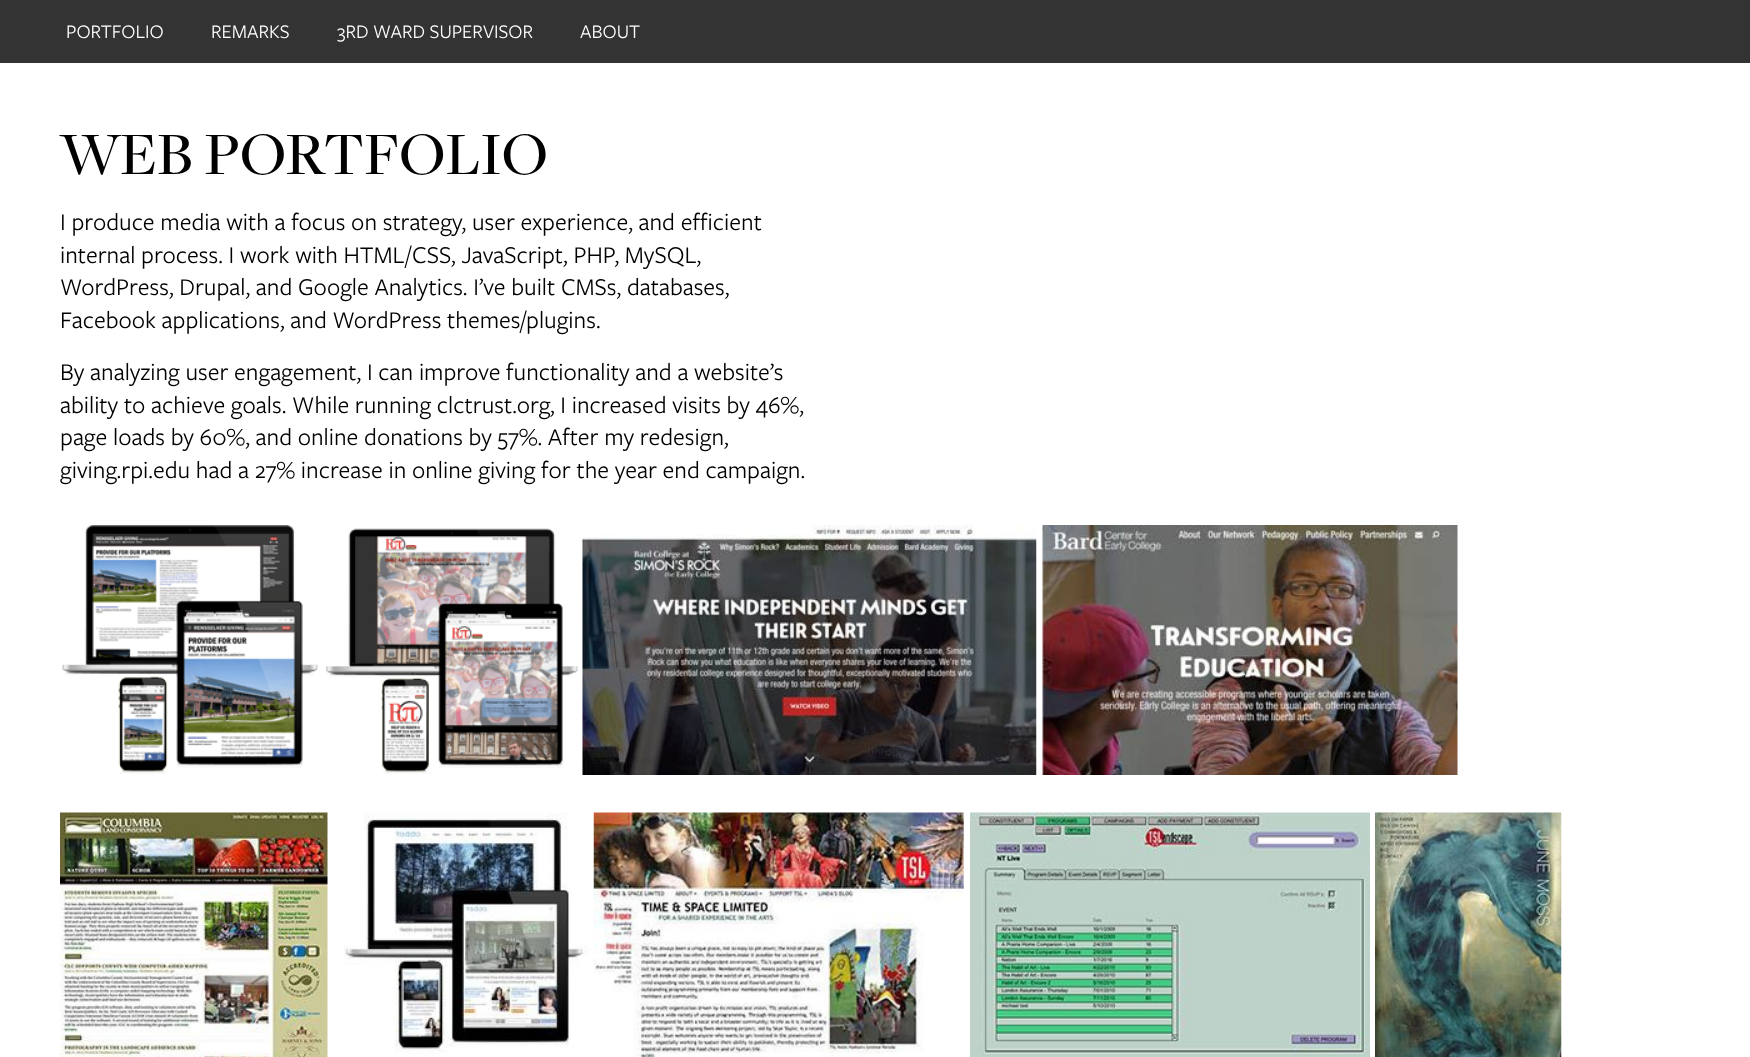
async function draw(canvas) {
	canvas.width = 1750;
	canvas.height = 1057;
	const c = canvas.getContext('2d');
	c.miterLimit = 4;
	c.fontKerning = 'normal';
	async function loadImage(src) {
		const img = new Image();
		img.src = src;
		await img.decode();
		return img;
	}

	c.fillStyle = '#fff';
	c.fillRect(0, 0, 1750, 1057);
	c.fillStyle = '#333';
	c.fillRect(0, 0, 1750, 63);
	c.font = '20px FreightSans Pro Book';
	c.fillStyle = '#fff';
	for (const [text, x, y] of [
		['PORTFOLIO', 66, 38],
		['REMARKS', 211, 38],
		['3RD WARD SUPERVISOR', 337, 38],
		['ABOUT', 580, 38],
	]) {
		c.fillText(text, x, y);
	}
	c.font = '500 62.5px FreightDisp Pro';
	c.fillStyle = '#000';
	c.fillText('WEB PORTFOLIO', 60, 174);
	c.font = '25px FreightSans Pro Book';
	for (const [text, x, y] of [
		['I produce media with a focus on strategy, user experience, and efficient', 60, 230],
		['internal process. I work with HTML/CSS, JavaScript, PHP, MySQL,', 60, 263],
		['WordPress, Drupal, and Google Analytics. I’ve built CMSs, databases,', 60, 295],
		['Facebook applications, and WordPress themes/plugins.', 60, 328],
		['By analyzing user engagement, I can improve functionality and a website’s', 60, 380],
		['ability to achieve goals. While running clctrust.org, I increased visits by 46%,', 60, 413],
		['page loads by 60%, and online donations by 57%. After my redesign,', 60, 445],
		['giving.rpi.edu had a 27% increase in online giving for the year end campaign.', 60, 478],
	]) {
		c.fillText(text, x, y);
	}
	c.drawImage(await loadImage('img1.png'), 62, 525, 256, 249);
	c.drawImage(await loadImage('img2.png'), 326, 528, 252, 246);
	c.drawImage(await loadImage('img3.png'), 582, 525, 455, 250);
	c.drawImage(await loadImage('img4.png'), 1042, 525, 416, 250);
	c.drawImage(await loadImage('img5.png'), 60, 812, 268, 245);
	c.drawImage(await loadImage('img6.png'), 344, 812, 245, 242);
	c.drawImage(await loadImage('img7.png'), 593, 812, 371, 245);
	c.drawImage(await loadImage('img8.png'), 970, 812, 400, 245);
	c.drawImage(await loadImage('img9.png'), 1375, 812, 187, 245);
}

draw(document.querySelector('canvas'));
